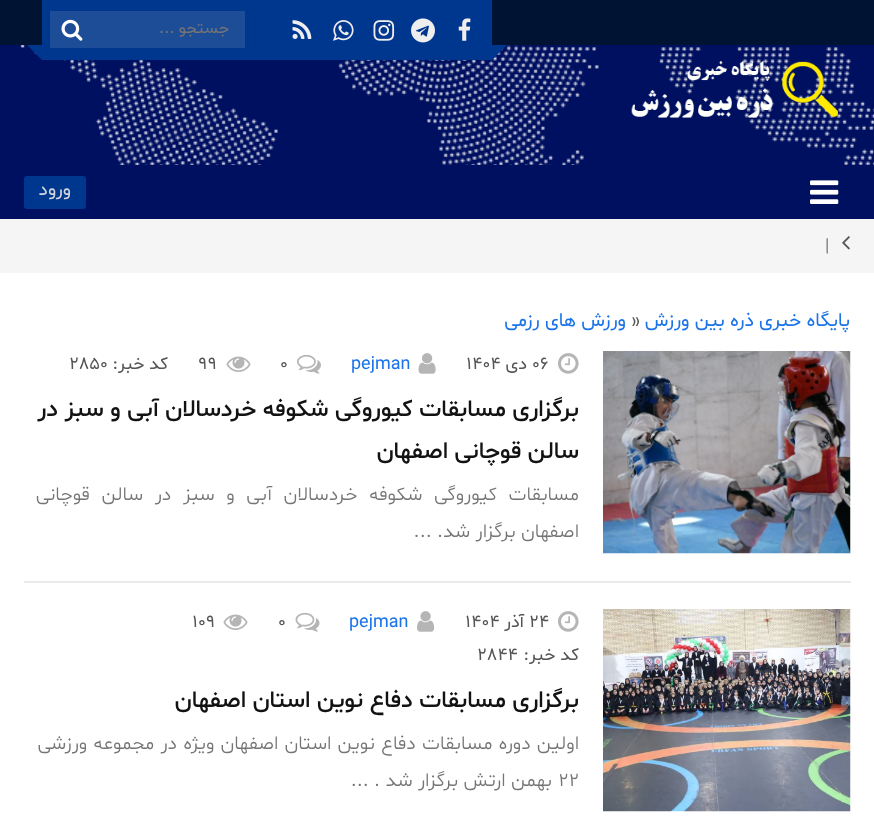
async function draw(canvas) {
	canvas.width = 874;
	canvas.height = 826;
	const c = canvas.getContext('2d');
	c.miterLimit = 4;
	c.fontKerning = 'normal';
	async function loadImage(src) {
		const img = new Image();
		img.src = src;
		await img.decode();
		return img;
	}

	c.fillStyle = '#fff';
	c.fillRect(0, 0, 874, 826);
	c.fillStyle = '#001332';
	c.fillRect(0, 0, 874, 45);
	c.fillStyle = '#001060';
	c.fillRect(0, 45, 874, 174);
	c.drawImage(await loadImage('img7.png'), 20, 45, 854, 120);
	c.fillStyle = '#00378e';
	c.fillRect(42, 0, 450, 60);
	c.drawImage(await loadImage('img1.png'), 458, 18, 13, 23);
	c.drawImage(await loadImage('img2.png'), 411, 18, 24, 25);
	c.drawImage(await loadImage('img3.png'), 373, 20, 22, 21);
	c.drawImage(await loadImage('img4.png'), 333, 20, 21, 21);
	c.drawImage(await loadImage('img5.png'), 292, 20, 20, 19);
	c.fillStyle = '#1e4d97';
	c.fillRect(50, 11, 195, 37);
	c.direction = 'rtl';
	c.font = '16.5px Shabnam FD';
	c.fillStyle = '#757575';
	c.fillText('جستجو ...', 229, 33);
	c.drawImage(await loadImage('img6.png'), 61, 19, 22, 22);
	c.fillStyle = '#00378e';
	c.beginPath();
	c.moveTo(492, 45);
	c.lineTo(507, 45);
	c.lineTo(492, 60);
	c.closePath();
	c.fill();
	c.beginPath();
	c.moveTo(27, 45);
	c.lineTo(42, 45);
	c.lineTo(42, 60);
	c.closePath();
	c.fill();
	c.drawImage(await loadImage('img8.png'), 631, 61, 207, 57);
	c.drawImage(await loadImage('img9.png'), 810, 180, 29, 24);
	c.beginPath();
	c.roundRect(24, 176, 62, 33, 3);
	c.fill();
	c.font = '19px Shabnam FD';
	c.fillStyle = '#d2d7db';
	c.fillText('ورود', 71, 195);
	c.fillStyle = '#f5f5f5';
	c.fillRect(0, 219, 874, 54);
	c.drawImage(await loadImage('img10.png'), 842, 236, 8, 14);
	c.direction = 'ltr';
	c.font = '18px Shabnam FD';
	c.fillStyle = '#7b7b7b';
	c.fillText('|', 825, 251);
	c.direction = 'rtl';
	c.font = '19.5px Shabnam FD';
	c.fillStyle = '#1a73e8';
	c.fillText('پایگاه خبری ذره بین ورزش', 850, 326);
	c.direction = 'ltr';
	c.fillStyle = '#555';
	c.fillText('»', 631, 326);
	c.direction = 'rtl';
	c.fillStyle = '#1a73e8';
	c.fillText('ورزش های رزمی', 626, 326);
	c.drawImage(await loadImage('img11.png'), 603, 351, 248, 203);
	c.drawImage(await loadImage('img12.png'), 558, 353, 21, 21);
	c.direction = 'ltr';
	c.font = '18px Shabnam FD';
	c.fillStyle = '#555';
	c.fillText('06', 532, 369);
	c.direction = 'rtl';
	c.fillText('دی', 527, 369);
	c.direction = 'ltr';
	c.fillText('1404', 466, 369);
	c.drawImage(await loadImage('img13.png'), 418, 353, 18, 21);
	c.fillStyle = '#1a73e8';
	c.fillText('pejman', 351, 369);
	c.drawImage(await loadImage('img14.png'), 297, 354, 24, 20);
	c.fillStyle = '#555';
	c.fillText('0', 280, 369);
	c.drawImage(await loadImage('img15.png'), 226, 356, 25, 16);
	c.fillText('99', 198, 369);
	c.direction = 'rtl';
	c.fillText('کد خبر:', 168, 369);
	c.direction = 'ltr';
	c.fillText('2850', 69, 369);
	c.direction = 'rtl';
	c.font = '500 24px Shabnam FD';
	c.fillStyle = '#121212';
	c.fillText('برگزاری مسابقات کیوروگی شکوفه خردسالان آبی و سبز در', 579, 416);
	c.fillText('سالن قوچانی اصفهان', 579, 458);
	c.wordSpacing = '6.25px';
	c.font = '300 19.5px Shabnam FD';
	c.fillStyle = '#757575';
	c.fillText('مسابقات کیوروگی شکوفه خردسالان آبی و سبز در سالن قوچانی', 579, 500);
	c.wordSpacing = '0px';
	c.fillText('اصفهان برگزار شد. ...', 579, 537);
	c.fillStyle = '#eaeaea';
	c.fillRect(24, 581, 827, 2);
	c.drawImage(await loadImage('img16.png'), 603, 609, 248, 203);
	c.drawImage(await loadImage('img12.png'), 558, 611, 21, 21);
	c.direction = 'ltr';
	c.font = '18px Shabnam FD';
	c.fillStyle = '#555';
	c.fillText('24', 529, 627);
	c.direction = 'rtl';
	c.fillText('آذر', 524, 627);
	c.direction = 'ltr';
	c.fillText('1404', 465, 627);
	c.drawImage(await loadImage('img17.png'), 417, 611, 18, 21);
	c.fillStyle = '#1a73e8';
	c.fillText('pejman', 349, 627);
	c.drawImage(await loadImage('img18.png'), 295, 612, 25, 20);
	c.fillStyle = '#555';
	c.fillText('0', 278, 627);
	c.drawImage(await loadImage('img15.png'), 223, 614, 25, 16);
	c.fillText('109', 192, 627);
	c.direction = 'rtl';
	c.fillText('کد خبر:', 579, 660);
	c.direction = 'ltr';
	c.fillText('2844', 477, 660);
	c.direction = 'rtl';
	c.font = '500 24px Shabnam FD';
	c.fillStyle = '#121212';
	c.fillText('برگزاری مسابقات دفاع نوین استان اصفهان', 579, 707);
	c.wordSpacing = '0.75px';
	c.font = '300 19.5px Shabnam FD';
	c.fillStyle = '#757575';
	c.fillText('اولین دوره مسابقات دفاع نوین استان اصفهان ویژه در مجموعه ورزشی', 579, 749);
	c.wordSpacing = '0px';
	c.direction = 'ltr';
	c.fillText('۲۲', 558, 786);
	c.direction = 'rtl';
	c.fillText('بهمن ارتش برگزار شد . ...', 552, 786);
}

draw(document.querySelector('canvas'));
